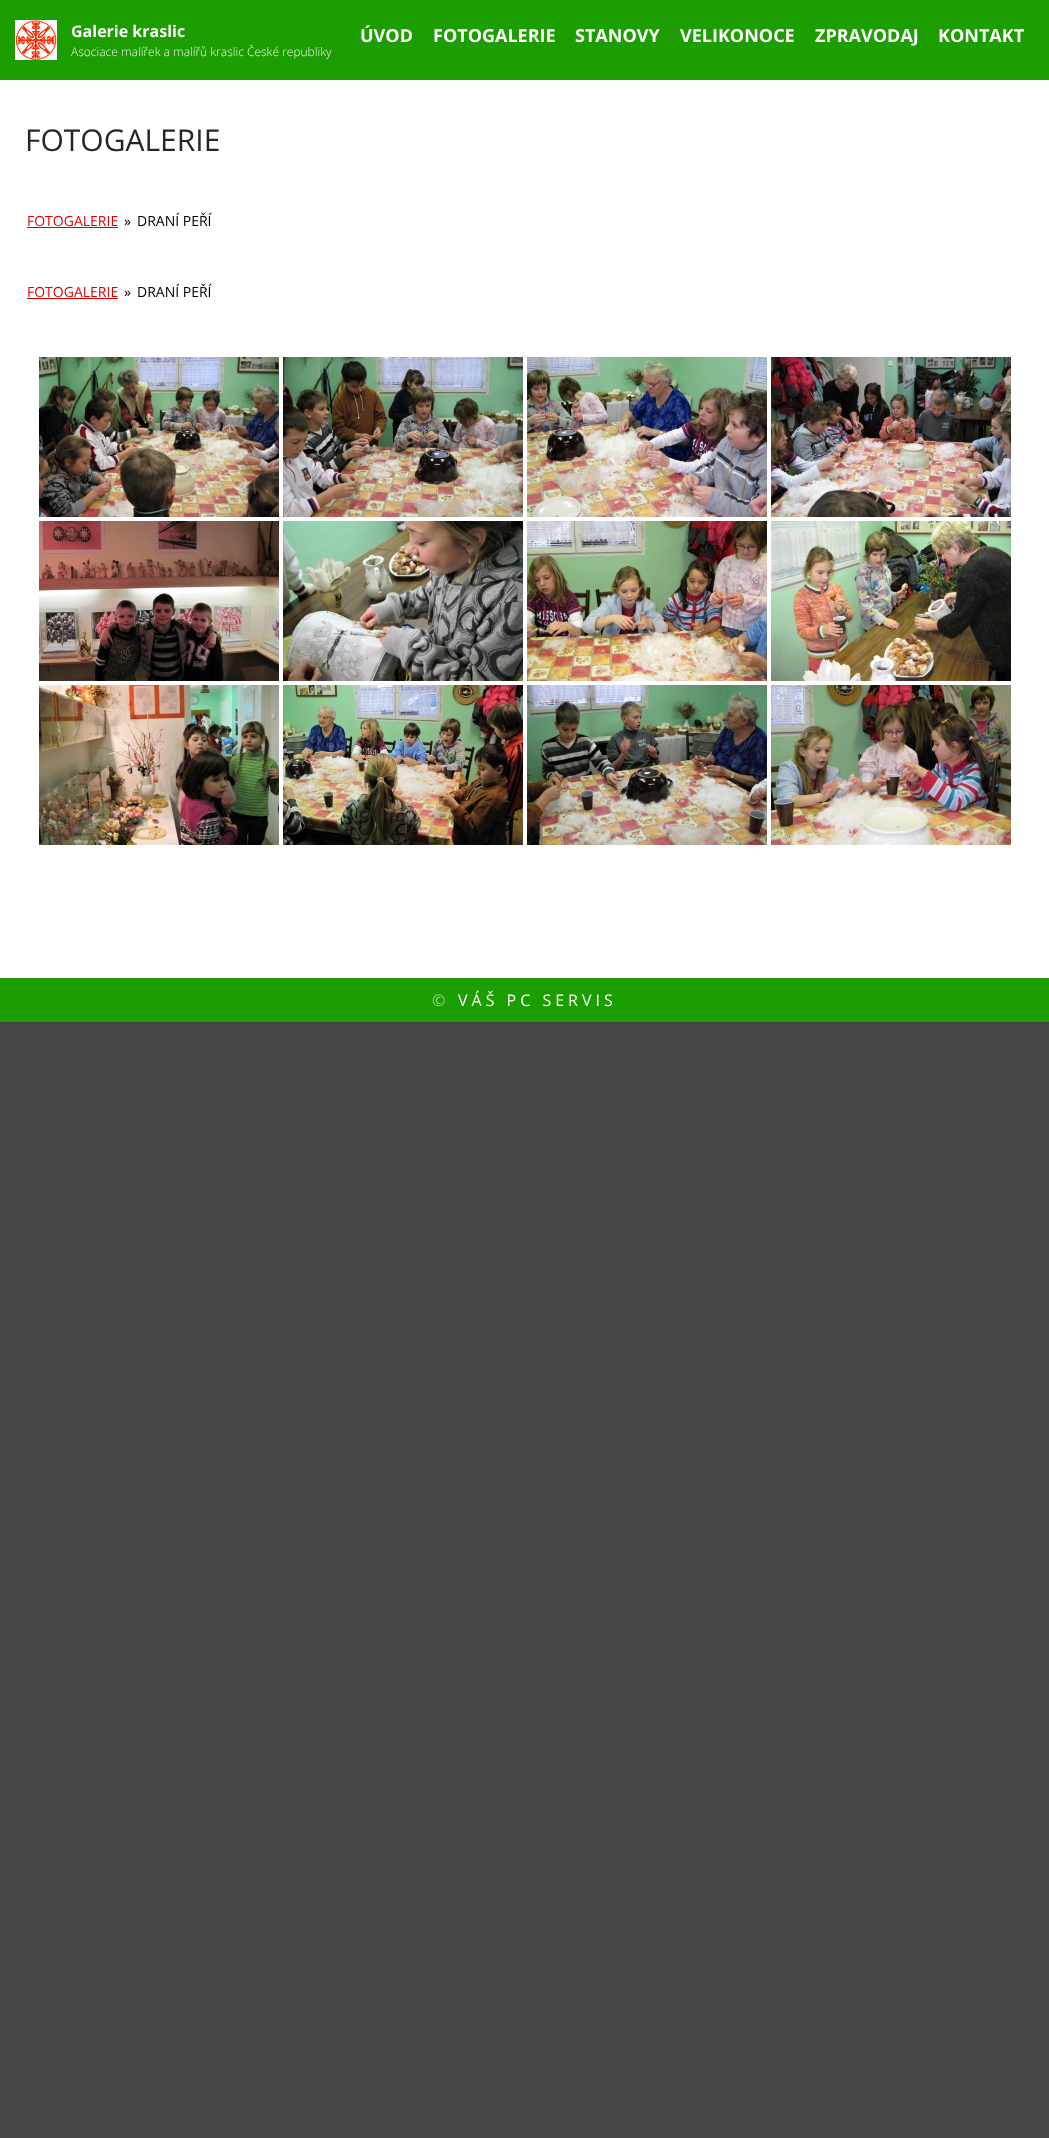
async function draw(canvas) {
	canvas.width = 1049;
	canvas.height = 2138;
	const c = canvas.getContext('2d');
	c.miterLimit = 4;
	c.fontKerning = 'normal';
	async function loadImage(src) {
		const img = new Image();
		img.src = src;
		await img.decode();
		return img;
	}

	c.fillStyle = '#454545';
	c.fillRect(0, 0, 1049, 2138);
	c.fillStyle = '#fff';
	c.fillRect(0, 80, 1049, 898);
	c.fillStyle = '#1c9e00';
	c.fillRect(0, 0, 1049, 80);
	c.drawImage(await loadImage('img1.png'), 15, 20, 42, 40);
	c.font = 'bold 16px Open Sans';
	c.fillStyle = '#fff';
	c.fillText('Galerie kraslic', 71, 37);
	c.font = '300 12px Open Sans';
	c.fillStyle = '#e8f5e6';
	c.fillText('Asociace malířek a malířů kraslic České republiky', 71, 56);
	c.font = 'bold 18px Open Sans';
	c.fillStyle = '#fff';
	for (const [text, x, y] of [
		['ÚVOD', 360, 42],
		['FOTOGALERIE', 433, 42],
		['STANOVY', 575, 42],
		['VELIKONOCE', 680, 42],
		['ZPRAVODAJ', 815, 42],
		['KONTAKT', 938, 42],
	]) {
		c.fillText(text, x, y);
	}
	c.font = '30px Open Sans';
	c.fillStyle = '#262626';
	c.fillText('FOTOGALERIE', 25, 151);
	c.font = '14px Open Sans';
	c.fillStyle = '#d00';
	c.fillText('FOTOGALERIE', 27, 226);
	c.fillRect(27, 227, 91, 1);
	c.fillStyle = '#000';
	c.fillText('»', 124, 226);
	c.fillText('DRANÍ PEŘÍ', 137, 226);
	c.fillStyle = '#d00';
	c.fillText('FOTOGALERIE', 27, 297);
	c.fillRect(27, 298, 91, 1);
	c.fillStyle = '#000';
	c.fillText('»', 124, 297);
	c.fillText('DRANÍ PEŘÍ', 137, 297);
	c.drawImage(await loadImage('img2.png'), 39, 357, 240, 160);
	c.drawImage(await loadImage('img3.png'), 283, 357, 240, 160);
	c.drawImage(await loadImage('img4.png'), 527, 357, 240, 160);
	c.drawImage(await loadImage('img5.png'), 771, 357, 240, 160);
	c.drawImage(await loadImage('img6.png'), 39, 521, 240, 160);
	c.drawImage(await loadImage('img7.png'), 283, 521, 240, 160);
	c.drawImage(await loadImage('img8.png'), 527, 521, 240, 160);
	c.drawImage(await loadImage('img9.png'), 771, 521, 240, 160);
	c.drawImage(await loadImage('img10.png'), 39, 685, 240, 160);
	c.drawImage(await loadImage('img11.png'), 283, 685, 240, 160);
	c.drawImage(await loadImage('img12.png'), 527, 685, 240, 160);
	c.drawImage(await loadImage('img13.png'), 771, 685, 240, 160);
	c.fillStyle = '#1c9e00';
	c.fillRect(0, 978, 1049, 44);
	c.letterSpacing = '4px';
	c.font = '16px Open Sans';
	c.fillStyle = '#99d38c';
	c.fillText('©', 432, 1006);
	c.fillStyle = '#fff';
	c.fillText('VÁŠ PC SERVIS', 458, 1006);
}

draw(document.querySelector('canvas'));
